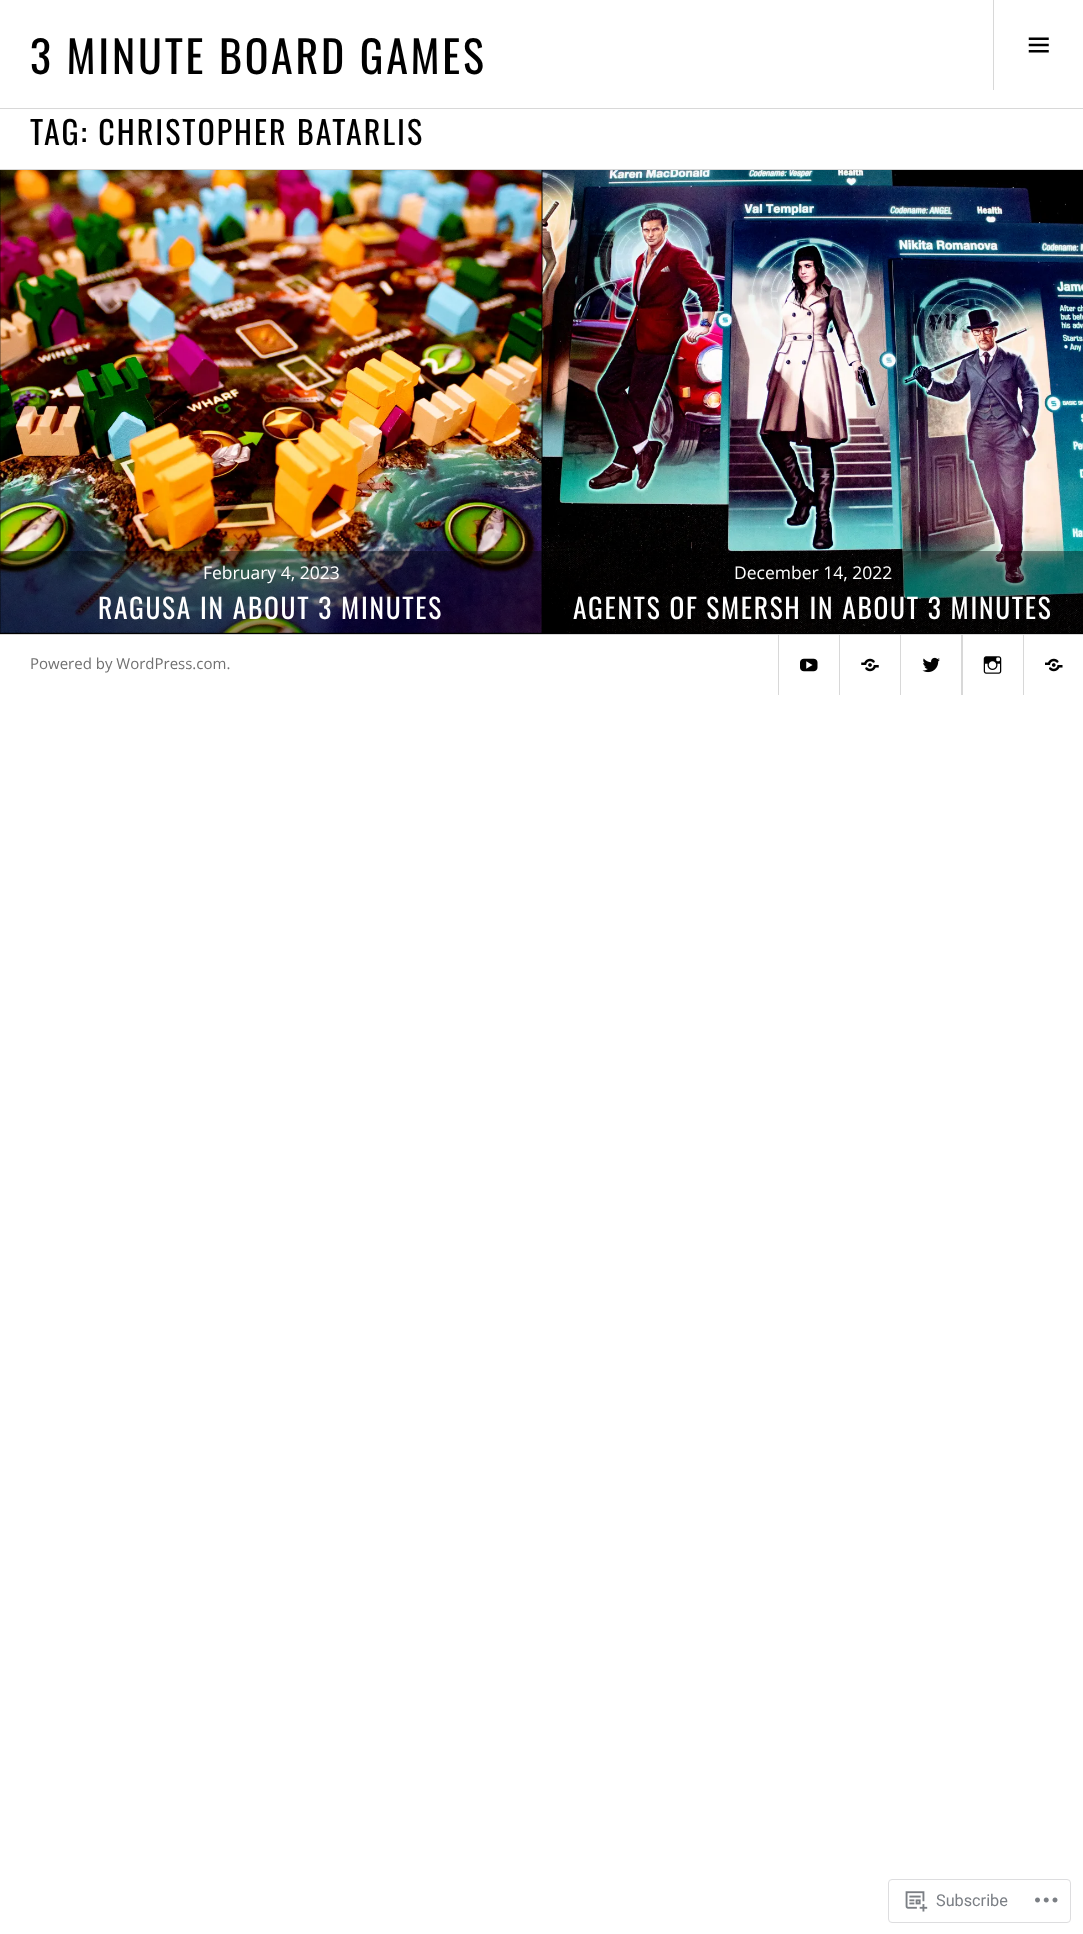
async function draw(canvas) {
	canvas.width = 1083;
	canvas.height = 1934;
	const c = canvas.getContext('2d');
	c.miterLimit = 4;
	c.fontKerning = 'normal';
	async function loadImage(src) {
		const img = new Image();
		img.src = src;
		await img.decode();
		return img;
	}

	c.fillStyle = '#fff';
	c.fillRect(0, 0, 1083, 1934);
	c.fillStyle = '#d8d8d8';
	c.fillRect(0, 108, 1083, 1);
	c.letterSpacing = '2.75px';
	c.font = '44px Oswald';
	c.fillStyle = '#000';
	c.fillText('3 MINUTE BOARD GAMES', 30, 74);
	c.fillStyle = '#d8d8d8';
	c.fillRect(993, 0, 1, 90);
	c.drawImage(await loadImage('img1.png'), 1028, 37, 21, 16);
	c.fillRect(0, 169, 1083, 1);
	c.letterSpacing = '2px';
	c.font = '32px Oswald';
	c.fillStyle = '#000';
	c.fillText('TAG: CHRISTOPHER BATARLIS', 30, 145);
	c.fillRect(0, 170, 543, 464);
	c.drawImage(await loadImage('img2.png'), 0, 170, 542, 463);
	c.fillRect(543, 632, 540, 2);
	c.drawImage(await loadImage('img3.png'), 542, 170, 541, 463);
	c.fillStyle = '#00000066';
	c.fillRect(0, 551, 543, 82);
	c.letterSpacing = '0px';
	c.font = '17.5px Open Sans';
	c.fillStyle = '#fff';
	c.fillText('February 4, 2023', 203, 579);
	c.letterSpacing = '1.7px';
	c.font = '27.5px Oswald';
	c.fillText('RAGUSA IN ABOUT 3 MINUTES', 98, 619);
	c.fillStyle = '#00000066';
	c.fillRect(543, 551, 540, 82);
	c.letterSpacing = '0px';
	c.font = '17.5px Open Sans';
	c.fillStyle = '#fff';
	c.fillText('December 14, 2022', 734, 579);
	c.letterSpacing = '1.7px';
	c.font = '27.5px Oswald';
	c.fillText('AGENTS OF SMERSH IN ABOUT 3 MINUTES', 573, 619);
	c.fillStyle = '#d8d8d8';
	c.fillRect(0, 634, 1083, 1);
	c.letterSpacing = '0px';
	c.font = '15px Open Sans';
	c.fillStyle = '#707070';
	c.fillText('Powered by WordPress.com.', 30, 669);
	c.save();
	c.beginPath();
	c.rect(0, 635, 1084, 60);
	c.clip();
	c.strokeStyle = '#d8d8d8';
	c.strokeRect(778.5, 634.5, 61, 61);
	c.restore();
	c.drawImage(await loadImage('img4.png'), 800, 658, 18, 14);
	c.save();
	c.beginPath();
	c.rect(0, 635, 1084, 60);
	c.clip();
	c.strokeStyle = '#d8d8d8';
	c.strokeRect(839.5, 634.5, 61, 61);
	c.restore();
	c.drawImage(await loadImage('img5.png'), 861, 658, 18, 14);
	c.save();
	c.beginPath();
	c.rect(0, 635, 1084, 60);
	c.clip();
	c.strokeStyle = '#d8d8d8';
	c.strokeRect(900.5, 634.5, 62, 61);
	c.restore();
	c.drawImage(await loadImage('img6.png'), 922, 657, 18, 16);
	c.save();
	c.beginPath();
	c.rect(0, 635, 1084, 60);
	c.clip();
	c.strokeStyle = '#d8d8d8';
	c.strokeRect(961.5, 634.5, 62, 61);
	c.restore();
	c.drawImage(await loadImage('img7.png'), 983, 656, 19, 18);
	c.drawImage(await loadImage('img8.png'), 1045, 658, 18, 14);
	c.beginPath();
	c.roundRect(888.5, 1879.5, 182, 43, 3.5);
	c.strokeStyle = '#dddddf';
	c.stroke();
	c.drawImage(await loadImage('img9.png'), 905, 1891, 23, 21);
	c.font = '16.25px Roboto';
	c.fillStyle = '#7b7f85';
	c.fillText('Subscribe', 936, 1906);
	c.drawImage(await loadImage('img10.png'), 1035, 1897, 23, 6);
}

draw(document.querySelector('canvas'));
